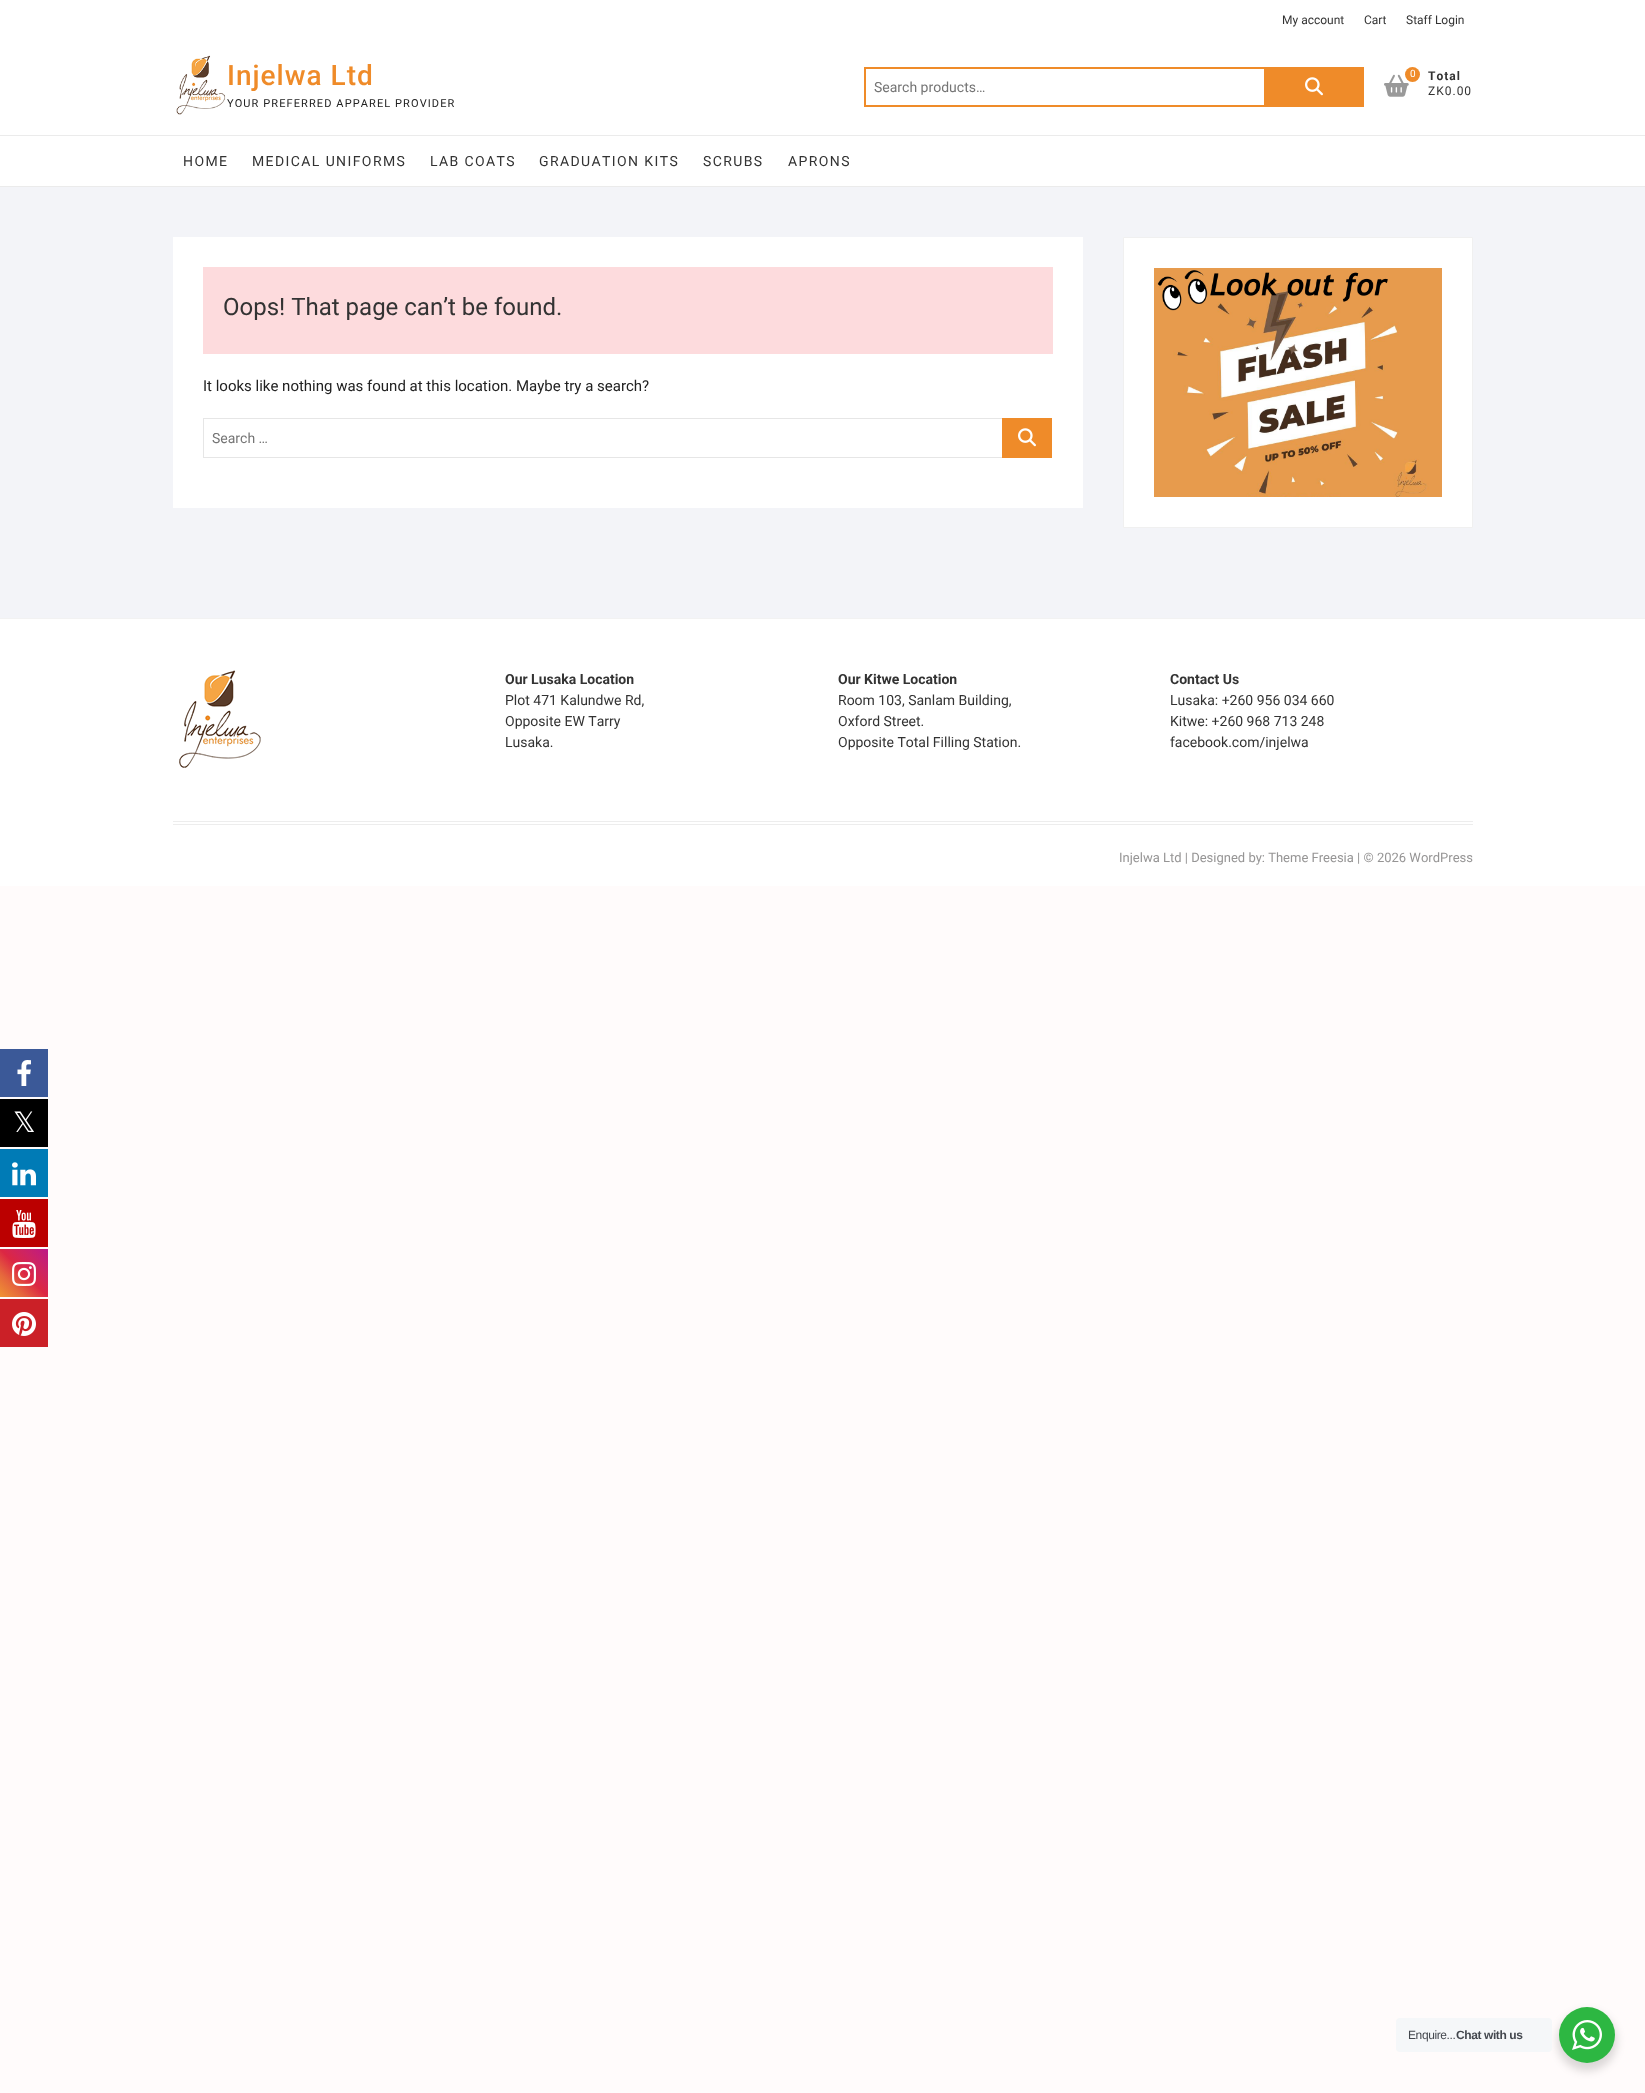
async function draw(canvas) {
	canvas.width = 1645;
	canvas.height = 2093;
	const c = canvas.getContext('2d');
	c.miterLimit = 4;
	c.fontKerning = 'none';
	async function loadImage(src) {
		const img = new Image();
		img.src = src;
		await img.decode();
		return img;
	}
	let gradient;

	c.fillStyle = '#fffbfb';
	c.fillRect(0, 0, 1645, 2093);
	c.fillStyle = '#f3f4f8';
	c.fillRect(0, 187, 1645, 431);
	c.fillStyle = '#fff';
	c.fillRect(0, 0, 1645, 186);
	c.font = '12px Roboto';
	c.fillStyle = '#333';
	for (const [text, x, y] of [
		['My account', 1282, 24],
		['Cart', 1364, 24],
		['Staff Login', 1406, 24],
	]) {
		c.fillText(text, x, y);
	}
	c.drawImage(await loadImage('img1.png'), 176, 55, 50, 60);
	c.letterSpacing = '1px';
	c.font = '500 28px Roboto';
	c.fillStyle = '#ef8b29';
	c.fillText('Injelwa Ltd', 227, 85);
	c.letterSpacing = '1.1px';
	c.font = '11px Roboto';
	c.fillStyle = '#222';
	c.fillText('YOUR PREFERRED APPAREL PROVIDER', 227, 107);
	for (const [x, y, w, h, color] of [
		[864, 67, 400, 2, '#ef8b29'],
		[864, 105, 400, 2, '#ef8b29'],
		[864, 67, 2, 40, '#ef8b29'],
	]) {
		c.fillStyle = color;
		c.fillRect(x, y, w, h);
	}
	c.letterSpacing = '0px';
	c.font = '14px Roboto';
	c.fillStyle = '#757575';
	c.fillText('Search products…', 874, 92);
	c.fillStyle = '#ef8b29';
	c.fillRect(1264, 67, 100, 40);
	c.drawImage(await loadImage('img2.png'), 1305, 77, 18, 19);
	c.drawImage(await loadImage('img3.png'), 1384, 74, 25, 23);
	c.beginPath();
	c.arc(1412.5, 74.5, 7.5, 0, 2 * Math.PI);
	c.fill();
	c.font = '10px Roboto';
	c.fillStyle = '#fff';
	c.fillText('0', 1410, 77);
	c.letterSpacing = '1px';
	c.font = 'bold 12px Roboto';
	c.fillStyle = '#333';
	c.fillText('Total', 1428, 80);
	c.font = '12px Roboto';
	c.fillText('ZK0.00', 1428, 95);
	c.fillStyle = '#ebebeb';
	c.fillRect(0, 135, 1645, 1);
	c.fillRect(0, 186, 1645, 1);
	c.letterSpacing = '1.4px';
	c.font = '14px Roboto';
	c.fillStyle = '#333';
	for (const [text, x, y] of [
		['HOME', 183, 166],
		['MEDICAL UNIFORMS', 252, 166],
		['LAB COATS', 430, 166],
		['GRADUATION KITS', 539, 166],
		['SCRUBS', 703, 166],
		['APRONS', 788, 166],
	]) {
		c.fillText(text, x, y);
	}
	c.fillStyle = '#fff';
	c.fillRect(173, 237, 910, 271);
	c.fillStyle = '#fddbdd';
	c.fillRect(203, 267, 850, 87);
	c.letterSpacing = '0px';
	c.font = '24px Roboto';
	c.fillStyle = '#333';
	c.fillText('Oops! That page can’t be found.', 223, 315);
	c.font = '15px Roboto';
	c.fillStyle = '#222';
	c.fillText('It looks like nothing was found at this location. Maybe try a search?', 203, 391);
	c.strokeStyle = '#e6e6e6';
	c.strokeRect(203.5, 418.5, 799, 39);
	c.font = '14px Roboto';
	c.fillStyle = '#757575';
	c.fillText('Search …', 212, 443);
	c.fillStyle = '#ef8b29';
	c.fillRect(1002, 418, 50, 40);
	c.drawImage(await loadImage('img2.png'), 1018, 428, 18, 19);
	c.fillStyle = '#fff';
	c.beginPath();
	c.rect(1123.5, 237.5, 349, 290);
	c.fill();
	c.strokeStyle = '#f0f0f0';
	c.stroke();
	c.drawImage(await loadImage('img4.png'), 1154, 268, 288, 229);
	c.fillRect(0, 619, 1645, 267);
	c.fillStyle = '#f2f2f2';
	c.fillRect(0, 618, 1645, 1);
	c.drawImage(await loadImage('img5.png'), 179, 670, 82, 98);
	c.font = 'bold 14px Roboto';
	c.fillStyle = '#333';
	c.fillText('Our Lusaka Location', 505, 684);
	c.font = '14px Roboto';
	for (const [text, x, y] of [
		['Plot 471 Kalundwe Rd,', 505, 705],
		['Opposite EW Tarry', 505, 726],
		['Lusaka.', 505, 747],
	]) {
		c.fillText(text, x, y);
	}
	c.font = 'bold 14px Roboto';
	c.fillText('Our Kitwe Location', 838, 684);
	c.font = '14px Roboto';
	for (const [text, x, y] of [
		['Room 103, Sanlam Building,', 838, 705],
		['Oxford Street.', 838, 726],
		['Opposite Total Filling Station.', 838, 747],
	]) {
		c.fillText(text, x, y);
	}
	c.font = 'bold 14px Roboto';
	c.fillText('Contact Us', 1170, 684);
	c.font = '14px Roboto';
	for (const [text, x, y] of [
		['Lusaka: +260 956 034 660', 1170, 705],
		['Kitwe: +260 968 713 248', 1170, 726],
		['facebook.com/injelwa', 1170, 747],
	]) {
		c.fillText(text, x, y);
	}
	c.fillStyle = '#ededed';
	c.fillRect(173, 824, 1300, 1);
	c.fillRect(173, 821, 1300, 1);
	c.font = '13px Roboto';
	c.fillStyle = '#969595';
	c.fillText('Injelwa Ltd | Designed by: Theme Freesia | © 2026 WordPress', 1119, 862);
	c.fillStyle = '#3b5998';
	c.fillRect(0, 1049, 48, 48);
	c.drawImage(await loadImage('img6.png'), 17, 1060, 14, 26);
	c.fillStyle = '#000';
	c.fillRect(0, 1099, 48, 48);
	c.font = '28px DejaVu Sans';
	c.fillStyle = '#fff';
	c.fillText('𝕏', 13, 1132);
	c.fillStyle = '#007bb6';
	c.fillRect(0, 1149, 48, 48);
	c.drawImage(await loadImage('img7.png'), 12, 1162, 24, 24);
	c.fillStyle = '#b00';
	c.fillRect(0, 1199, 48, 48);
	c.drawImage(await loadImage('img8.png'), 12, 1210, 24, 28);
	gradient = c.createLinearGradient(0, 1297, 48, 1249);
	gradient.addColorStop(0, '#f09433');
	gradient.addColorStop(0.25, '#e6683c');
	gradient.addColorStop(0.5, '#dc2743');
	gradient.addColorStop(0.75, '#cc2366');
	gradient.addColorStop(1, '#bc1888');
	c.fillStyle = gradient;
	c.fillRect(0, 1249, 48, 48);
	c.drawImage(await loadImage('img9.png'), 12, 1262, 24, 24);
	c.fillStyle = '#cb2027';
	c.fillRect(0, 1299, 48, 48);
	c.drawImage(await loadImage('img10.png'), 12, 1312, 24, 24);
	c.fillStyle = '#00000024';
	c.filter = 'blur(4px)';
	c.beginPath();
	c.roundRect(1557, 2011, 60, 60, 30);
	c.fill();
	c.filter = 'none';
	c.fillStyle = '#f5f7f9';
	c.beginPath();
	c.roundRect(1396, 2018, 156, 34, 4);
	c.fill();
	c.letterSpacing = '-0.4px';
	c.font = '12px Liberation Sans';
	c.fillStyle = '#43474e';
	c.fillText('Enquire...', 1408, 2039);
	c.font = 'bold 12px Liberation Sans';
	c.fillText('Chat with us', 1456, 2039);
	c.fillStyle = '#2db742';
	c.beginPath();
	c.arc(1587, 2035, 28, 0, 2 * Math.PI);
	c.fill();
	c.drawImage(await loadImage('img11.png'), 1572, 2020, 30, 30);
}

draw(document.querySelector('canvas'));
